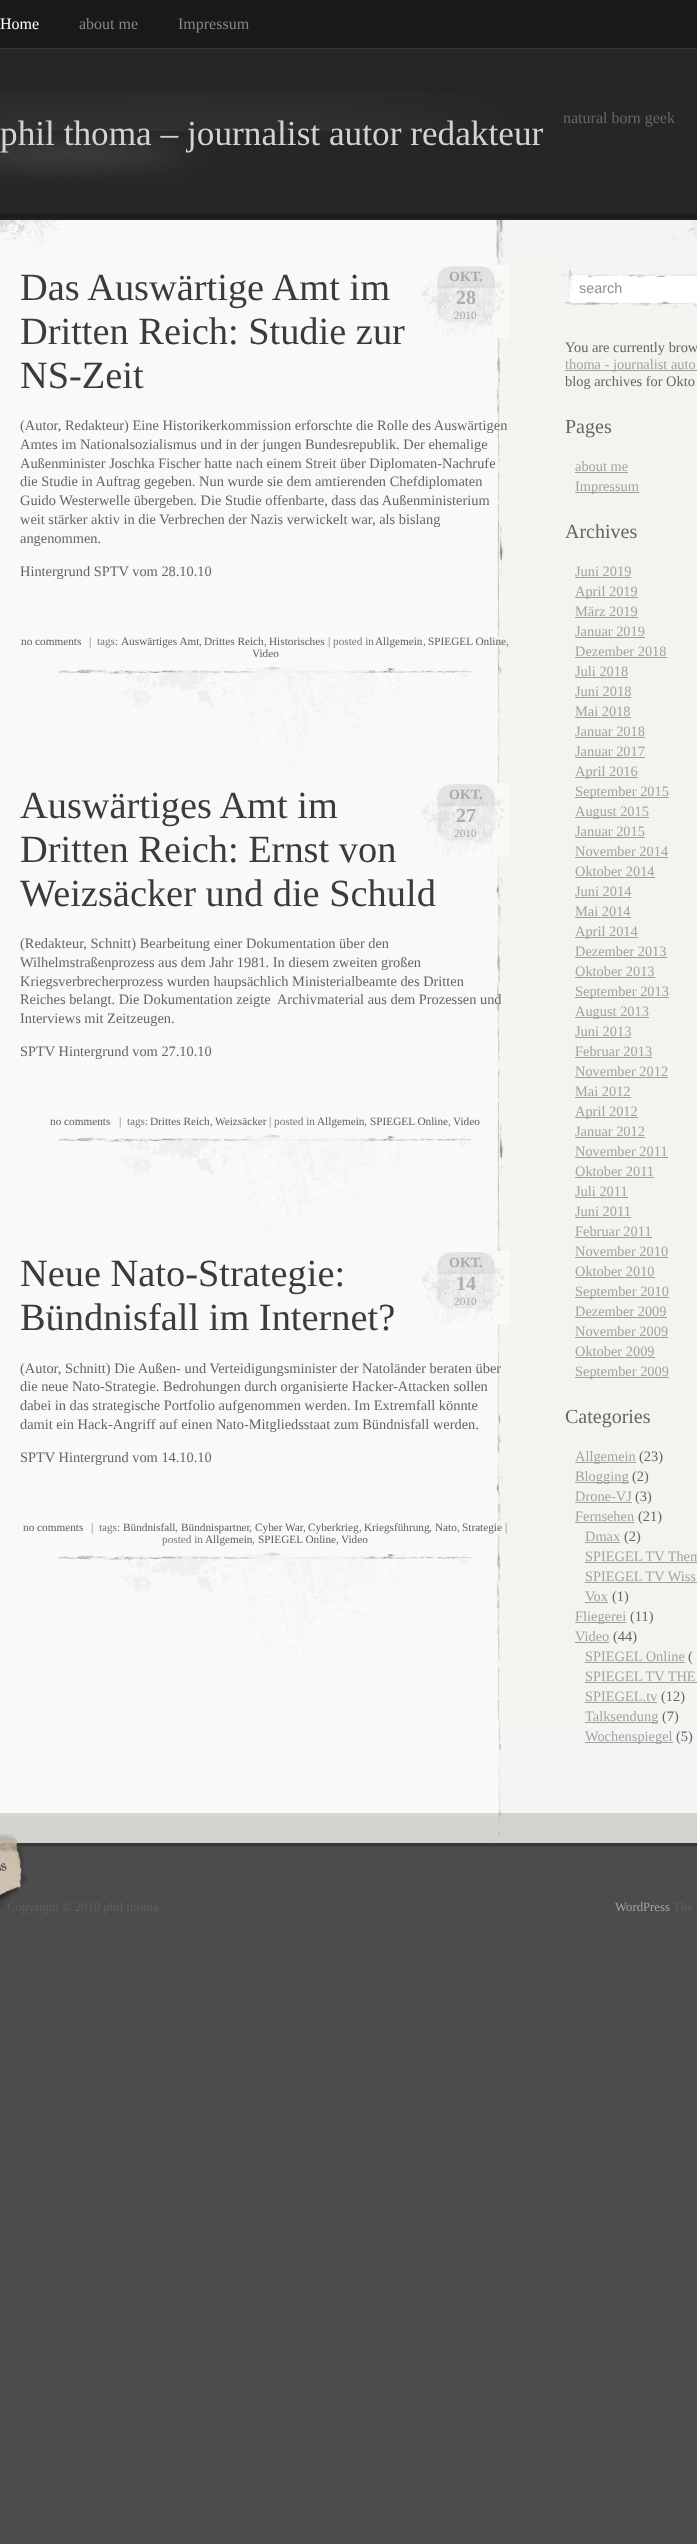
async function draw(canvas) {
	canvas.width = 697;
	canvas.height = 2544;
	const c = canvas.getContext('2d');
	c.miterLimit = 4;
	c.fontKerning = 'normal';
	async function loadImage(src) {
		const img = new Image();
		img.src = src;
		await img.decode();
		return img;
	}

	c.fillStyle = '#4c4c4c';
	c.fillRect(0, 0, 697, 2544);
	c.fillStyle = '#191919';
	c.fillRect(0, 0, 697, 48);
	c.fillStyle = '#373737';
	c.fillRect(0, 48, 697, 1);
	c.font = '16px Liberation Serif';
	c.fillStyle = '#fff';
	c.fillText('Home', 0, 29);
	c.fillStyle = '#868686';
	c.fillText('about me', 79, 29);
	c.fillText('Impressum', 178, 29);
	c.drawImage(await loadImage('img1.png'), 0, 49, 697, 44);
	c.drawImage(await loadImage('img2.png'), 0, 93, 697, 172);
	c.font = '35.25px Liberation Serif';
	c.fillStyle = '#d3d3d3';
	c.fillText('phil thoma – journalist autor redakteur', 0, 145);
	c.font = '16px Liberation Serif';
	c.fillStyle = '#666';
	c.fillText('natural born geek', 563, 123);
	c.fillStyle = '#f3f4ee';
	c.fillRect(508, 265, 189, 1454);
	c.drawImage(await loadImage('img3.png'), 0, 265, 508, 1454);
	c.font = '38.4px Liberation Serif';
	c.fillStyle = '#3b3b3b';
	for (const [text, x, y] of [
		['Das Auswärtige Amt im', 20, 300],
		['Dritten Reich: Studie zur', 20, 344],
		['NS-Zeit', 20, 388],
	]) {
		c.fillText(text, x, y);
	}
	c.drawImage(await loadImage('img4.png'), 421, 265, 89, 73);
	c.font = 'bold 14px Liberation Serif';
	c.fillStyle = '#a9a9a9';
	c.fillText('OKT.', 449, 281);
	c.font = 'bold 20px Liberation Serif';
	c.fillStyle = '#afafaf';
	c.fillText('28', 456, 304);
	c.font = '11.25px Liberation Serif';
	c.fillStyle = '#a9a9a9';
	c.fillText('2010', 454, 319);
	c.font = '14.4px Liberation Serif';
	c.fillStyle = '#666';
	for (const [text, x, y] of [
		['(Autor, Redakteur) Eine Historikerkommission erforschte die Rolle des Auswärtigen', 20, 430],
		['Amtes im Nationalsozialismus und in der jungen Bundesrepublik. Der ehemalige', 20, 449],
		['Außenminister Joschka Fischer hatte nach einem Streit über Diplomaten-Nachrufe', 20, 468],
		['die Studie in Auftrag gegeben. Nun wurde sie dem amtierenden Chefdiplomaten', 20, 486],
		['Guido Westerwelle übergeben. Die Studie offenbarte, dass das Außenministerium', 20, 505],
		['weit stärker aktiv in die Verbrechen der Nazis verwickelt war, als bislang', 20, 524],
		['angenommen.', 20, 543],
		['Hintergrund SPTV vom 28.10.10', 20, 576],
	]) {
		c.fillText(text, x, y);
	}
	c.font = '11.25px Liberation Serif';
	c.fillStyle = '#5f5f5f';
	c.fillText('no comments', 21, 645);
	c.fillStyle = '#797979';
	c.fillText('|  tags:', 89, 645);
	c.fillStyle = '#5f5f5f';
	c.fillText('Auswärtiges Amt', 121, 645);
	c.fillStyle = '#797979';
	c.fillText(',', 199, 645);
	c.fillStyle = '#5f5f5f';
	c.fillText('Drittes Reich', 204, 645);
	c.fillStyle = '#797979';
	c.fillText(',', 264, 645);
	c.fillStyle = '#5f5f5f';
	c.fillText('Historisches', 269, 645);
	c.fillStyle = '#797979';
	c.fillText('| posted in', 328, 645);
	c.fillStyle = '#5f5f5f';
	c.fillText('Allgemein', 375, 645);
	c.fillStyle = '#797979';
	c.fillText(',', 423, 645);
	c.fillStyle = '#5f5f5f';
	c.fillText('SPIEGEL Online', 428, 645);
	c.fillStyle = '#797979';
	c.fillText(',', 506, 645);
	c.fillStyle = '#5f5f5f';
	c.fillText('Video', 252, 657);
	c.drawImage(await loadImage('img5.png'), 58, 662, 414, 113);
	c.font = '38.4px Liberation Serif';
	c.fillStyle = '#3b3b3b';
	for (const [text, x, y] of [
		['Auswärtiges Amt im', 20, 818],
		['Dritten Reich: Ernst von', 20, 862],
		['Weizsäcker und die Schuld', 20, 906],
	]) {
		c.fillText(text, x, y);
	}
	c.drawImage(await loadImage('img4.png'), 421, 783, 89, 73);
	c.font = 'bold 14px Liberation Serif';
	c.fillStyle = '#a9a9a9';
	c.fillText('OKT.', 449, 799);
	c.font = 'bold 20px Liberation Serif';
	c.fillStyle = '#afafaf';
	c.fillText('27', 456, 822);
	c.font = '11.25px Liberation Serif';
	c.fillStyle = '#a9a9a9';
	c.fillText('2010', 454, 837);
	c.font = '14.4px Liberation Serif';
	c.fillStyle = '#666';
	for (const [text, x, y] of [
		['(Redakteur, Schnitt) Bearbeitung einer Dokumentation über den', 20, 948],
		['Wilhelmstraßenprozess aus dem Jahr 1981. In diesem zweiten großen', 20, 967],
		['Kriegsverbrecherprozess wurden haupsächlich Ministerialbeamte des Dritten', 20, 986],
		['Reiches belangt. Die Dokumentation zeigte  Archivmaterial aus dem Prozessen und', 20, 1004],
		['Interviews mit Zeitzeugen.', 20, 1023],
		['SPTV Hintergrund vom 27.10.10', 20, 1056],
	]) {
		c.fillText(text, x, y);
	}
	c.font = '11.25px Liberation Serif';
	c.fillStyle = '#5f5f5f';
	c.fillText('no comments', 50, 1125);
	c.fillStyle = '#797979';
	c.fillText('|  tags:', 119, 1125);
	c.fillStyle = '#5f5f5f';
	c.fillText('Drittes Reich', 150, 1125);
	c.fillStyle = '#797979';
	c.fillText(',', 210, 1125);
	c.fillStyle = '#5f5f5f';
	c.fillText('Weizsäcker', 215, 1125);
	c.fillStyle = '#797979';
	c.fillText('| posted in', 269, 1125);
	c.fillStyle = '#5f5f5f';
	c.fillText('Allgemein', 317, 1125);
	c.fillStyle = '#797979';
	c.fillText(',', 364, 1125);
	c.fillStyle = '#5f5f5f';
	c.fillText('SPIEGEL Online', 370, 1125);
	c.fillStyle = '#797979';
	c.fillText(',', 448, 1125);
	c.fillStyle = '#5f5f5f';
	c.fillText('Video', 453, 1125);
	c.drawImage(await loadImage('img5.png'), 58, 1130, 414, 113);
	c.font = '38.4px Liberation Serif';
	c.fillStyle = '#3b3b3b';
	c.fillText('Neue Nato-Strategie:', 20, 1286);
	c.fillText('Bündnisfall im Internet?', 20, 1330);
	c.drawImage(await loadImage('img4.png'), 421, 1251, 89, 73);
	c.font = 'bold 14px Liberation Serif';
	c.fillStyle = '#a9a9a9';
	c.fillText('OKT.', 449, 1267);
	c.font = 'bold 20px Liberation Serif';
	c.fillStyle = '#afafaf';
	c.fillText('14', 456, 1290);
	c.font = '11.25px Liberation Serif';
	c.fillStyle = '#a9a9a9';
	c.fillText('2010', 454, 1305);
	c.font = '14.4px Liberation Serif';
	c.fillStyle = '#666';
	for (const [text, x, y] of [
		['(Autor, Schnitt) Die Außen- und Verteidigungsminister der Natoländer beraten über', 20, 1373],
		['die neue Nato-Strategie. Bedrohungen durch organisierte Hacker-Attacken sollen', 20, 1391],
		['dabei in das strategische Portfolio aufgenommen werden. Im Extremfall könnte', 20, 1410],
		['damit ein Hack-Angriff auf einen Nato-Mitgliedsstaat zum Bündnisfall werden.', 20, 1429],
		['SPTV Hintergrund vom 14.10.10', 20, 1462],
	]) {
		c.fillText(text, x, y);
	}
	c.font = '11.25px Liberation Serif';
	c.fillStyle = '#5f5f5f';
	c.fillText('no comments', 23, 1531);
	c.fillStyle = '#797979';
	c.fillText('|  tags:', 91, 1531);
	c.fillStyle = '#5f5f5f';
	c.fillText('Bündnisfall', 123, 1531);
	c.fillStyle = '#797979';
	c.fillText(',', 175, 1531);
	c.fillStyle = '#5f5f5f';
	c.fillText('Bündnispartner', 181, 1531);
	c.fillStyle = '#797979';
	c.fillText(',', 249, 1531);
	c.fillStyle = '#5f5f5f';
	c.fillText('Cyber War', 255, 1531);
	c.fillStyle = '#797979';
	c.fillText(',', 303, 1531);
	c.fillStyle = '#5f5f5f';
	c.fillText('Cyberkrieg', 308, 1531);
	c.fillStyle = '#797979';
	c.fillText(',', 359, 1531);
	c.fillStyle = '#5f5f5f';
	c.fillText('Kriegsführung', 364, 1531);
	c.fillStyle = '#797979';
	c.fillText(',', 429, 1531);
	c.fillStyle = '#5f5f5f';
	c.fillText('Nato', 435, 1531);
	c.fillStyle = '#797979';
	c.fillText(',', 457, 1531);
	c.fillStyle = '#5f5f5f';
	c.fillText('Strategie', 462, 1531);
	c.fillStyle = '#797979';
	c.fillText('|', 505, 1531);
	c.fillText('posted in', 162, 1543);
	c.fillStyle = '#5f5f5f';
	c.fillText('Allgemein', 205, 1543);
	c.fillStyle = '#797979';
	c.fillText(',', 252, 1543);
	c.fillStyle = '#5f5f5f';
	c.fillText('SPIEGEL Online', 258, 1543);
	c.fillStyle = '#797979';
	c.fillText(',', 336, 1543);
	c.fillStyle = '#5f5f5f';
	c.fillText('Video', 341, 1543);
	c.drawImage(await loadImage('img5.png'), 58, 1548, 414, 113);
	c.drawImage(await loadImage('img6.png'), 558, 265, 139, 48);
	c.fillStyle = '#fff';
	c.fillRect(577, 279, 119, 2);
	c.font = '14.4px Liberation Sans';
	c.fillStyle = '#909090';
	c.fillText('search', 579, 293);
	c.font = '14.4px Liberation Serif';
	c.fillStyle = '#666';
	c.fillText('You are currently brow', 565, 352);
	c.fillStyle = '#9f9f9f';
	c.fillRect(565, 370, 132, 1);
	c.fillStyle = '#a3a3a3';
	c.fillText('thoma - journalist auto', 565, 369);
	c.fillStyle = '#666';
	c.fillText('blog archives for Okto', 565, 386);
	c.font = '20px Liberation Serif';
	c.fillText('Pages', 565, 433);
	c.font = '14.4px Liberation Serif';
	c.fillStyle = '#a3a3a3';
	c.fillText('about me', 575, 471);
	c.fillStyle = '#9f9f9f';
	c.fillRect(575, 472, 53, 1);
	c.fillRect(575, 492, 64, 1);
	c.fillStyle = '#a3a3a3';
	c.fillText('Impressum', 575, 491);
	c.font = '20px Liberation Serif';
	c.fillStyle = '#666';
	c.fillText('Archives', 565, 538);
	c.font = '14.4px Liberation Serif';
	c.fillStyle = '#a3a3a3';
	c.fillText('Juni 2019', 575, 576);
	c.fillStyle = '#9f9f9f';
	c.fillRect(575, 577, 56, 1);
	c.fillRect(575, 597, 63, 1);
	c.fillStyle = '#a3a3a3';
	c.fillText('April 2019', 575, 596);
	c.fillText('März 2019', 575, 616);
	c.fillStyle = '#9f9f9f';
	c.fillRect(575, 617, 63, 1);
	c.fillStyle = '#a3a3a3';
	c.fillText('Januar 2019', 575, 636);
	c.fillStyle = '#9f9f9f';
	c.fillRect(575, 637, 70, 1);
	c.fillStyle = '#a3a3a3';
	c.fillText('Dezember 2018', 575, 656);
	c.fillStyle = '#9f9f9f';
	c.fillRect(575, 657, 92, 1);
	c.fillStyle = '#a3a3a3';
	c.fillText('Juli 2018', 575, 676);
	c.fillStyle = '#9f9f9f';
	c.fillRect(575, 677, 53, 1);
	c.fillStyle = '#a3a3a3';
	c.fillText('Juni 2018', 575, 696);
	c.fillStyle = '#9f9f9f';
	c.fillRect(575, 697, 56, 1);
	c.fillStyle = '#a3a3a3';
	c.fillText('Mai 2018', 575, 716);
	c.fillStyle = '#9f9f9f';
	c.fillRect(575, 717, 56, 1);
	c.fillStyle = '#a3a3a3';
	c.fillText('Januar 2018', 575, 736);
	c.fillStyle = '#9f9f9f';
	c.fillRect(575, 737, 70, 1);
	c.fillStyle = '#a3a3a3';
	c.fillText('Januar 2017', 575, 756);
	c.fillStyle = '#9f9f9f';
	c.fillRect(575, 757, 70, 1);
	c.fillRect(575, 777, 63, 1);
	c.fillStyle = '#a3a3a3';
	c.fillText('April 2016', 575, 776);
	c.fillStyle = '#9f9f9f';
	c.fillRect(575, 797, 94, 1);
	c.fillStyle = '#a3a3a3';
	c.fillText('September 2015', 575, 796);
	c.fillStyle = '#9f9f9f';
	c.fillRect(575, 817, 74, 1);
	c.fillStyle = '#a3a3a3';
	c.fillText('August 2015', 575, 816);
	c.fillText('Januar 2015', 575, 836);
	c.fillStyle = '#9f9f9f';
	c.fillRect(575, 837, 70, 1);
	c.fillStyle = '#a3a3a3';
	c.fillText('November 2014', 575, 856);
	c.fillStyle = '#9f9f9f';
	c.fillRect(575, 857, 93, 1);
	c.fillStyle = '#a3a3a3';
	c.fillText('Oktober 2014', 575, 876);
	c.fillStyle = '#9f9f9f';
	c.fillRect(575, 877, 80, 1);
	c.fillStyle = '#a3a3a3';
	c.fillText('Juni 2014', 575, 896);
	c.fillStyle = '#9f9f9f';
	c.fillRect(575, 897, 56, 1);
	c.fillStyle = '#a3a3a3';
	c.fillText('Mai 2014', 575, 916);
	c.fillStyle = '#9f9f9f';
	c.fillRect(575, 917, 56, 1);
	c.fillRect(575, 937, 63, 1);
	c.fillStyle = '#a3a3a3';
	c.fillText('April 2014', 575, 936);
	c.fillText('Dezember 2013', 575, 956);
	c.fillStyle = '#9f9f9f';
	c.fillRect(575, 957, 92, 1);
	c.fillStyle = '#a3a3a3';
	c.fillText('Oktober 2013', 575, 976);
	c.fillStyle = '#9f9f9f';
	c.fillRect(575, 977, 80, 1);
	c.fillRect(575, 997, 94, 1);
	c.fillStyle = '#a3a3a3';
	c.fillText('September 2013', 575, 996);
	c.fillStyle = '#9f9f9f';
	c.fillRect(575, 1017, 74, 1);
	c.fillStyle = '#a3a3a3';
	c.fillText('August 2013', 575, 1016);
	c.fillText('Juni 2013', 575, 1036);
	c.fillStyle = '#9f9f9f';
	c.fillRect(575, 1037, 56, 1);
	c.fillStyle = '#a3a3a3';
	c.fillText('Februar 2013', 575, 1056);
	c.fillStyle = '#9f9f9f';
	c.fillRect(575, 1057, 77, 1);
	c.fillStyle = '#a3a3a3';
	c.fillText('November 2012', 575, 1076);
	c.fillStyle = '#9f9f9f';
	c.fillRect(575, 1077, 93, 1);
	c.fillStyle = '#a3a3a3';
	c.fillText('Mai 2012', 575, 1096);
	c.fillStyle = '#9f9f9f';
	c.fillRect(575, 1097, 56, 1);
	c.fillRect(575, 1117, 63, 1);
	c.fillStyle = '#a3a3a3';
	c.fillText('April 2012', 575, 1116);
	c.fillText('Januar 2012', 575, 1136);
	c.fillStyle = '#9f9f9f';
	c.fillRect(575, 1137, 70, 1);
	c.fillStyle = '#a3a3a3';
	c.fillText('November 2011', 575, 1156);
	c.fillStyle = '#9f9f9f';
	c.fillRect(575, 1157, 93, 1);
	c.fillStyle = '#a3a3a3';
	c.fillText('Oktober 2011', 575, 1176);
	c.fillStyle = '#9f9f9f';
	c.fillRect(575, 1177, 79, 1);
	c.fillStyle = '#a3a3a3';
	c.fillText('Juli 2011', 575, 1196);
	c.fillStyle = '#9f9f9f';
	c.fillRect(575, 1197, 53, 1);
	c.fillStyle = '#a3a3a3';
	c.fillText('Juni 2011', 575, 1216);
	c.fillStyle = '#9f9f9f';
	c.fillRect(575, 1217, 56, 1);
	c.fillStyle = '#a3a3a3';
	c.fillText('Februar 2011', 575, 1236);
	c.fillStyle = '#9f9f9f';
	c.fillRect(575, 1237, 77, 1);
	c.fillStyle = '#a3a3a3';
	c.fillText('November 2010', 575, 1256);
	c.fillStyle = '#9f9f9f';
	c.fillRect(575, 1257, 93, 1);
	c.fillStyle = '#a3a3a3';
	c.fillText('Oktober 2010', 575, 1276);
	c.fillStyle = '#9f9f9f';
	c.fillRect(575, 1277, 80, 1);
	c.fillRect(575, 1297, 94, 1);
	c.fillStyle = '#a3a3a3';
	c.fillText('September 2010', 575, 1296);
	c.fillText('Dezember 2009', 575, 1316);
	c.fillStyle = '#9f9f9f';
	c.fillRect(575, 1317, 92, 1);
	c.fillStyle = '#a3a3a3';
	c.fillText('November 2009', 575, 1336);
	c.fillStyle = '#9f9f9f';
	c.fillRect(575, 1337, 93, 1);
	c.fillStyle = '#a3a3a3';
	c.fillText('Oktober 2009', 575, 1356);
	c.fillStyle = '#9f9f9f';
	c.fillRect(575, 1357, 80, 1);
	c.fillRect(575, 1377, 94, 1);
	c.fillStyle = '#a3a3a3';
	c.fillText('September 2009', 575, 1376);
	c.font = '20px Liberation Serif';
	c.fillStyle = '#666';
	c.fillText('Categories', 565, 1423);
	c.fillStyle = '#9f9f9f';
	c.fillRect(575, 1462, 61, 1);
	c.font = '14.4px Liberation Serif';
	c.fillStyle = '#a3a3a3';
	c.fillText('Allgemein', 575, 1461);
	c.fillStyle = '#666';
	c.fillText('(23)', 639, 1461);
	c.fillStyle = '#9f9f9f';
	c.fillRect(575, 1482, 54, 1);
	c.fillStyle = '#a3a3a3';
	c.fillText('Blogging', 575, 1481);
	c.fillStyle = '#666';
	c.fillText('(2)', 632, 1481);
	c.fillStyle = '#a3a3a3';
	c.fillText('Drone-VJ', 575, 1501);
	c.fillStyle = '#9f9f9f';
	c.fillRect(575, 1502, 57, 1);
	c.fillStyle = '#666';
	c.fillText('(3)', 635, 1501);
	c.fillStyle = '#a3a3a3';
	c.fillText('Fernsehen', 575, 1521);
	c.fillStyle = '#9f9f9f';
	c.fillRect(575, 1522, 59, 1);
	c.fillStyle = '#666';
	c.fillText('(21)', 638, 1521);
	c.fillStyle = '#a3a3a3';
	c.fillText('Dmax', 585, 1541);
	c.fillStyle = '#9f9f9f';
	c.fillRect(585, 1542, 35, 1);
	c.fillStyle = '#666';
	c.fillText('(2)', 624, 1541);
	c.fillStyle = '#a3a3a3';
	c.fillText('SPIEGEL TV Them', 585, 1561);
	c.fillStyle = '#9f9f9f';
	c.fillRect(585, 1562, 112, 1);
	c.fillStyle = '#a3a3a3';
	c.fillText('SPIEGEL TV Wiss', 585, 1581);
	c.fillStyle = '#9f9f9f';
	c.fillRect(585, 1582, 112, 1);
	c.fillStyle = '#a3a3a3';
	c.fillText('Vox', 585, 1601);
	c.fillStyle = '#9f9f9f';
	c.fillRect(585, 1602, 23, 1);
	c.fillStyle = '#666';
	c.fillText('(1)', 612, 1601);
	c.fillStyle = '#9f9f9f';
	c.fillRect(575, 1622, 51, 1);
	c.fillStyle = '#a3a3a3';
	c.fillText('Fliegerei', 575, 1621);
	c.fillStyle = '#666';
	c.fillText('(11)', 630, 1621);
	c.fillStyle = '#a3a3a3';
	c.fillText('Video', 575, 1641);
	c.fillStyle = '#9f9f9f';
	c.fillRect(575, 1642, 34, 1);
	c.fillStyle = '#666';
	c.fillText('(44)', 613, 1641);
	c.fillStyle = '#a3a3a3';
	c.fillText('SPIEGEL Online', 585, 1661);
	c.fillStyle = '#9f9f9f';
	c.fillRect(585, 1662, 100, 1);
	c.fillStyle = '#666';
	c.fillText('(', 688, 1661);
	c.fillStyle = '#a3a3a3';
	c.fillText('SPIEGEL TV THE', 585, 1681);
	c.fillStyle = '#9f9f9f';
	c.fillRect(585, 1682, 112, 1);
	c.fillStyle = '#a3a3a3';
	c.fillText('SPIEGEL.tv', 585, 1701);
	c.fillStyle = '#9f9f9f';
	c.fillRect(585, 1702, 72, 1);
	c.fillStyle = '#666';
	c.fillText('(12)', 661, 1701);
	c.drawImage(await loadImage('img7.png'), 0, 1719, 697, 128);
	c.fillStyle = '#9f9f9f';
	c.fillRect(585, 1722, 73, 1);
	c.fillStyle = '#a3a3a3';
	c.fillText('Talksendung', 585, 1721);
	c.fillStyle = '#666';
	c.fillText('(7)', 662, 1721);
	c.fillStyle = '#9f9f9f';
	c.fillRect(585, 1742, 88, 1);
	c.fillStyle = '#a3a3a3';
	c.fillText('Wochenspiegel', 585, 1741);
	c.fillStyle = '#666';
	c.fillText('(5)', 676, 1741);
	c.font = '12.75px Liberation Serif';
	c.fillStyle = '#5f5f5f';
	c.fillText('Copyright © 2010 phil thoma', 7, 1911);
	c.drawImage(await loadImage('img8.png'), 0, 1834, 28, 74);
	c.fillStyle = '#a3a3a3';
	c.fillText('WordPress', 615, 1911);
	c.fillStyle = '#5f5f5f';
	c.fillText('The', 673, 1911);
}

draw(document.querySelector('canvas'));
